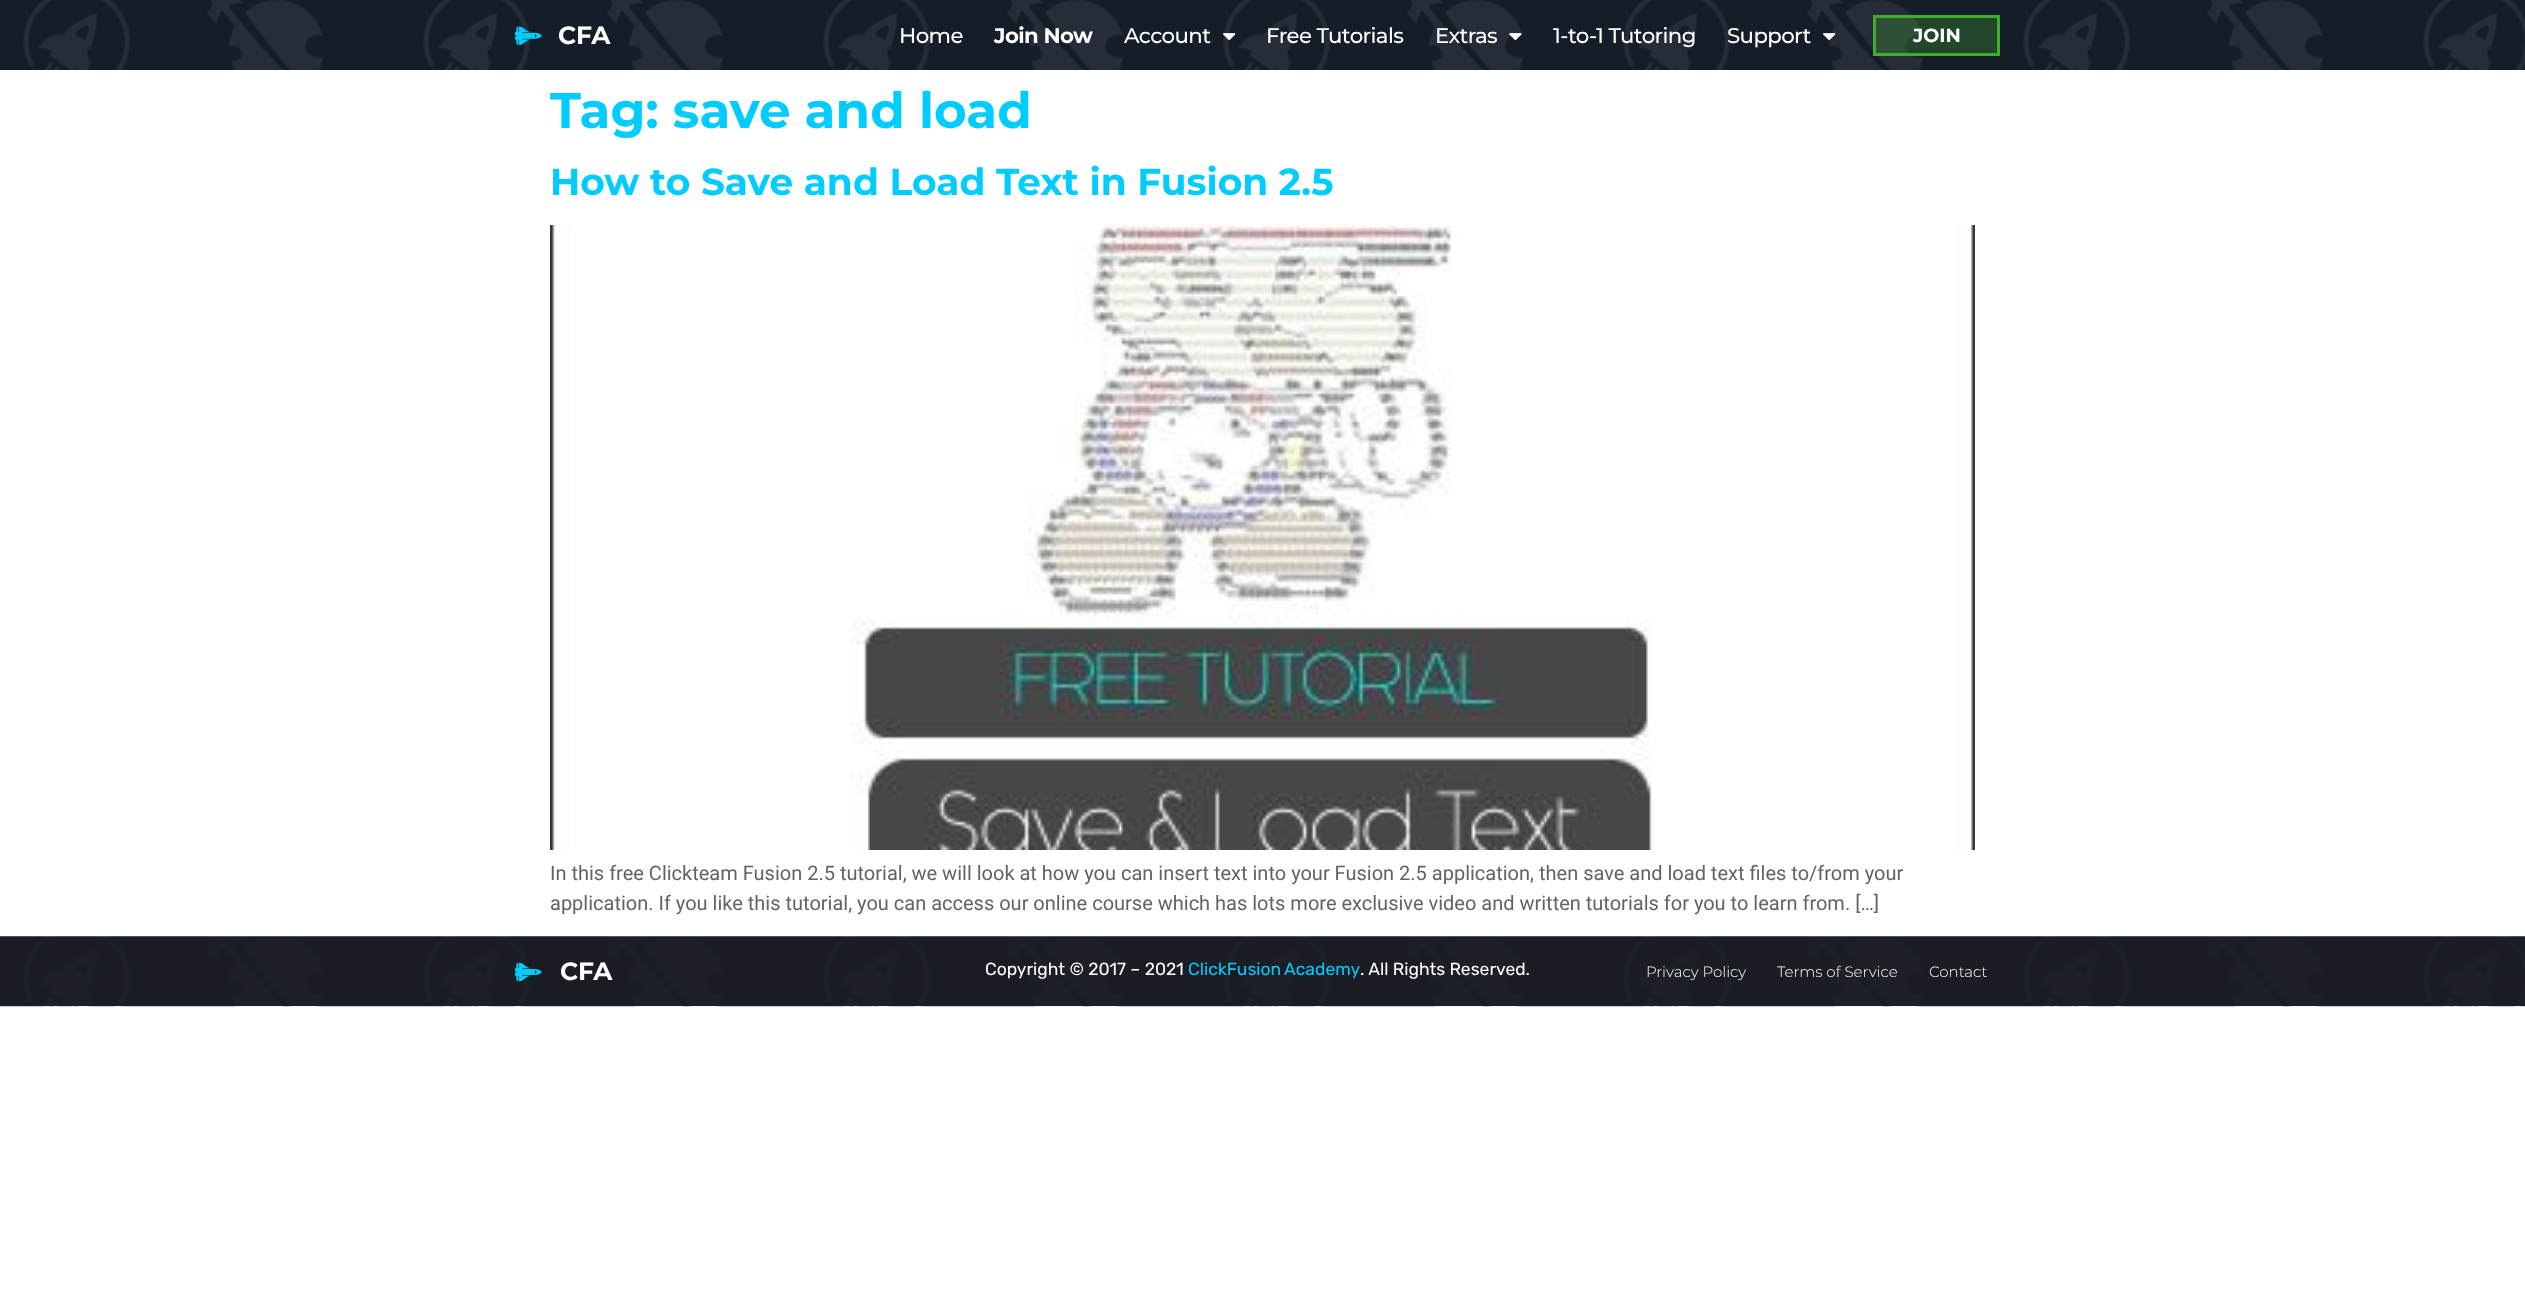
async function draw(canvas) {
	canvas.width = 2525;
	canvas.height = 1302;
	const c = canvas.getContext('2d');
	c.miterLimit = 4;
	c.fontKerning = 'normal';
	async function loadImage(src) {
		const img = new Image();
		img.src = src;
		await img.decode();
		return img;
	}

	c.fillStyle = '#fff';
	c.fillRect(0, 0, 2525, 1302);
	c.drawImage(await loadImage('img1.png'), 0, 0, 2525, 70);
	c.drawImage(await loadImage('img2.png'), 515, 26, 27, 20);
	c.font = 'bold 25px Montserrat';
	c.fillText('CFA', 558, 44);
	c.letterSpacing = '-0.6px';
	c.font = '500 21.25px Montserrat';
	c.fillText('Home', 899, 43);
	c.font = 'bold 21.25px Montserrat';
	c.fillText('Join Now', 994, 43);
	c.font = '500 21.25px Montserrat';
	c.fillText('Account', 1124, 43);
	c.drawImage(await loadImage('img3.png'), 1223, 33, 13, 8);
	c.fillText('Free Tutorials', 1266, 43);
	c.fillText('Extras', 1435, 43);
	c.drawImage(await loadImage('img4.png'), 1509, 33, 13, 8);
	c.fillText('1-to-1 Tutoring', 1553, 43);
	c.fillText('Support', 1727, 43);
	c.drawImage(await loadImage('img5.png'), 1823, 33, 13, 8);
	c.fillStyle = '#41ad2f4a';
	c.beginPath();
	c.rect(1874.5, 16.5, 124, 38);
	c.fill();
	c.strokeStyle = '#41ad2f';
	c.lineWidth = 3;
	c.stroke();
	c.letterSpacing = '0px';
	c.font = 'bold 19px Montserrat';
	c.fillStyle = '#fff';
	c.fillText('JOIN', 1913, 42);
	c.font = 'bold 50px Montserrat';
	c.fillStyle = '#0cf';
	c.fillText('Tag: save and load', 550, 128);
	c.font = 'bold 37.5px Montserrat';
	c.fillText('How to Save and Load Text in Fusion 2.5', 550, 195);
	c.drawImage(await loadImage('img6.png'), 550, 225, 1425, 625);
	c.font = '20px Roboto';
	c.fillStyle = '#636363';
	c.fillText('In this free Clickteam Fusion 2.5 tutorial, we will look at how you can insert text into your Fusion 2.5 application, then save and load text files to/from your', 550, 880);
	c.fillText('application. If you like this tutorial, you can access our online course which has lots more exclusive video and written tutorials for you to learn from. […]', 550, 910);
	c.drawImage(await loadImage('img7.png'), 0, 936, 2525, 71);
	c.drawImage(await loadImage('img8.png'), 515, 962, 27, 20);
	c.font = 'bold 25px Montserrat';
	c.fillStyle = '#fff';
	c.fillText('CFA', 560, 980);
	c.font = '17.5px Rubik';
	c.fillText('Copyright © 2017 – 2021', 985, 975);
	c.wordSpacing = '-1px';
	c.fillStyle = '#0cf';
	c.fillText('ClickFusion Academy', 1188, 975);
	c.wordSpacing = '0px';
	c.fillStyle = '#fff';
	c.fillText('. All Rights Reserved.', 1360, 975);
	c.font = '300 15px Montserrat';
	for (const [text, x, y] of [
		['Privacy Policy', 1646, 977],
		['Terms of Service', 1777, 977],
		['Contact', 1929, 977],
	]) {
		c.fillText(text, x, y);
	}
}

draw(document.querySelector('canvas'));
